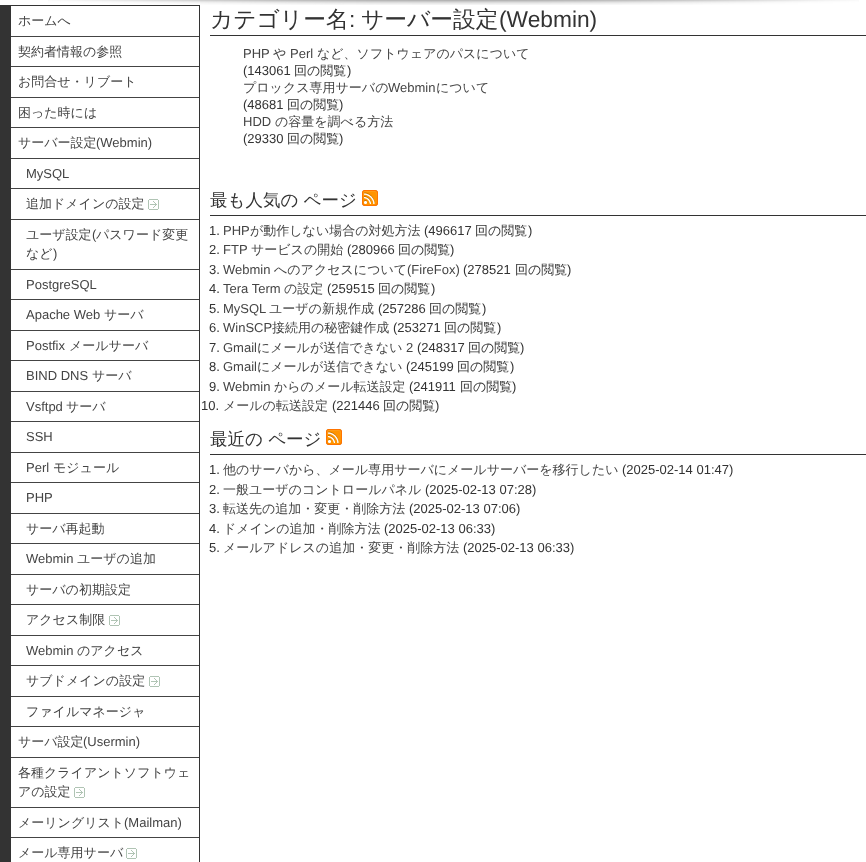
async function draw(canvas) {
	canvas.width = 866;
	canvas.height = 862;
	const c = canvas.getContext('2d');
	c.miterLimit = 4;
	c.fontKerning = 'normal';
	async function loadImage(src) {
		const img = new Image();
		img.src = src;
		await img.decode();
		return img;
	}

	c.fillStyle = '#fff';
	c.fillRect(0, 0, 866, 862);
	c.drawImage(await loadImage('img1.png'), 48, 0, 811, 5);
	c.strokeStyle = '#333';
	c.strokeRect(0.5, 5.5, 199, 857);
	c.fillStyle = '#333';
	c.fillRect(1, 6, 10, 856);
	c.fillStyle = '#444';
	c.fillRect(11, 36, 188, 1);
	c.font = '500 13px WenQuanYi Zen Hei';
	c.fillText('ホームへ', 18, 25);
	c.fillRect(11, 66, 188, 1);
	c.fillText('契約者情報の参照', 18, 56);
	c.fillRect(11, 97, 188, 1);
	c.fillText('お問合せ・リブート', 18, 86);
	c.fillRect(11, 127, 188, 1);
	c.fillText('困った時には', 18, 117);
	c.fillRect(11, 158, 188, 1);
	c.fillText('サーバー設定', 18, 147);
	c.font = '13px Liberation Sans';
	c.fillText('(Webmin)', 96, 147);
	c.fillRect(11, 188, 188, 1);
	c.fillText('MySQL', 26, 178);
	c.fillRect(11, 219, 188, 1);
	c.font = '500 13px WenQuanYi Zen Hei';
	c.fillText('追加ドメインの設定', 26, 208);
	c.drawImage(await loadImage('img2.png'), 148, 199, 11, 11);
	c.fillRect(11, 269, 188, 1);
	c.fillText('ユーザ設定', 26, 239);
	c.font = '13px Liberation Sans';
	c.fillText('(', 92, 239);
	c.font = '500 13px WenQuanYi Zen Hei';
	c.fillText('パスワード変更', 96, 239);
	c.fillText('など', 26, 258);
	c.font = '13px Liberation Sans';
	c.fillText(')', 53, 258);
	c.fillRect(11, 299, 188, 1);
	c.fillText('PostgreSQL', 26, 289);
	c.fillRect(11, 330, 188, 1);
	c.fillText('Apache Web', 26, 319);
	c.font = '500 13px WenQuanYi Zen Hei';
	c.fillText('サーバ', 104, 319);
	c.fillRect(11, 360, 188, 1);
	c.font = '13px Liberation Sans';
	c.fillText('Postfix', 26, 350);
	c.font = '500 13px WenQuanYi Zen Hei';
	c.fillText('メールサーバ', 69, 350);
	c.fillRect(11, 391, 188, 1);
	c.font = '13px Liberation Sans';
	c.fillText('BIND DNS', 26, 380);
	c.font = '500 13px WenQuanYi Zen Hei';
	c.fillText('サーバ', 92, 380);
	c.fillRect(11, 421, 188, 1);
	c.font = '13px Liberation Sans';
	c.fillText('Vsftpd', 26, 411);
	c.font = '500 13px WenQuanYi Zen Hei';
	c.fillText('サーバ', 66, 411);
	c.fillRect(11, 452, 188, 1);
	c.font = '13px Liberation Sans';
	c.fillText('SSH', 26, 441);
	c.fillRect(11, 482, 188, 1);
	c.fillText('Perl', 26, 472);
	c.font = '500 13px WenQuanYi Zen Hei';
	c.fillText('モジュール', 53, 472);
	c.fillRect(11, 513, 188, 1);
	c.font = '13px Liberation Sans';
	c.fillText('PHP', 26, 502);
	c.fillRect(11, 543, 188, 1);
	c.font = '500 13px WenQuanYi Zen Hei';
	c.fillText('サーバ再起動', 26, 533);
	c.fillRect(11, 574, 188, 1);
	c.font = '13px Liberation Sans';
	c.fillText('Webmin', 26, 563);
	c.font = '500 13px WenQuanYi Zen Hei';
	c.fillText('ユーザの追加', 77, 563);
	c.fillRect(11, 604, 188, 1);
	c.fillText('サーバの初期設定', 26, 594);
	c.fillRect(11, 635, 188, 1);
	c.fillText('アクセス制限', 26, 624);
	c.drawImage(await loadImage('img2.png'), 109, 615, 11, 11);
	c.fillRect(11, 665, 188, 1);
	c.font = '13px Liberation Sans';
	c.fillText('Webmin', 26, 655);
	c.font = '500 13px WenQuanYi Zen Hei';
	c.fillText('のアクセス', 77, 655);
	c.fillRect(11, 696, 188, 1);
	c.fillText('サブドメインの設定', 26, 685);
	c.drawImage(await loadImage('img2.png'), 149, 676, 11, 11);
	c.fillRect(11, 726, 188, 1);
	c.fillText('ファイルマネージャ', 26, 716);
	c.fillRect(11, 757, 188, 1);
	c.fillText('サーバ設定', 18, 746);
	c.font = '13px Liberation Sans';
	c.fillText('(Usermin)', 83, 746);
	c.fillRect(11, 807, 188, 1);
	c.font = '500 13px WenQuanYi Zen Hei';
	c.fillText('各種クライアントソフトウェ', 18, 777);
	c.fillText('アの設定', 18, 796);
	c.drawImage(await loadImage('img2.png'), 74, 787, 11, 11);
	c.fillRect(11, 837, 188, 1);
	c.fillText('メーリングリスト', 18, 827);
	c.font = '13px Liberation Sans';
	c.fillText('(Mailman)', 124, 827);
	c.font = '500 13px WenQuanYi Zen Hei';
	c.fillText('メール専用サーバ', 18, 857);
	c.drawImage(await loadImage('img2.png'), 126, 848, 11, 11);
	c.fillStyle = '#333';
	c.fillRect(210, 35, 656, 1);
	c.font = '500 22.75px WenQuanYi Zen Hei';
	c.fillText('カテゴリー名', 210, 27);
	c.font = '22.75px Liberation Sans';
	c.fillText(':', 349, 27);
	c.font = '500 22.75px WenQuanYi Zen Hei';
	c.fillText('サーバー設定', 361, 27);
	c.font = '22.75px Liberation Sans';
	c.fillText('(Webmin)', 499, 27);
	c.font = '13px Liberation Sans';
	c.fillStyle = '#444';
	c.fillText('PHP', 243, 58);
	c.font = '500 13px WenQuanYi Zen Hei';
	c.fillText('や', 273, 58);
	c.font = '13px Liberation Sans';
	c.fillText('Perl', 290, 58);
	c.font = '500 13px WenQuanYi Zen Hei';
	c.fillText('など、ソフトウェアのパスについて', 317, 58);
	c.font = '13px Liberation Sans';
	c.fillStyle = '#333';
	c.fillText('(143061', 243, 75);
	c.font = '500 13px WenQuanYi Zen Hei';
	c.fillText('回の閲覧', 294, 75);
	c.font = '13px Liberation Sans';
	c.fillText(')', 347, 75);
	c.font = '500 13px WenQuanYi Zen Hei';
	c.fillStyle = '#444';
	c.fillText('プロックス専用サーバの', 243, 92);
	c.font = '13px Liberation Sans';
	c.fillText('Webmin', 388, 92);
	c.font = '500 13px WenQuanYi Zen Hei';
	c.fillText('について', 436, 92);
	c.font = '13px Liberation Sans';
	c.fillStyle = '#333';
	c.fillText('(48681', 243, 109);
	c.font = '500 13px WenQuanYi Zen Hei';
	c.fillText('回の閲覧', 287, 109);
	c.font = '13px Liberation Sans';
	c.fillText(')', 339, 109);
	c.fillStyle = '#444';
	c.fillText('HDD', 243, 126);
	c.font = '500 13px WenQuanYi Zen Hei';
	c.fillText('の容量を調べる方法', 275, 126);
	c.font = '13px Liberation Sans';
	c.fillStyle = '#333';
	c.fillText('(29330', 243, 143);
	c.font = '500 13px WenQuanYi Zen Hei';
	c.fillText('回の閲覧', 287, 143);
	c.font = '13px Liberation Sans';
	c.fillText(')', 339, 143);
	c.fillRect(210, 215, 656, 1);
	c.font = '500 17.5px WenQuanYi Zen Hei';
	c.fillText('最も人気の ページ', 210, 206);
	c.drawImage(await loadImage('img3.png'), 362, 190, 16, 16);
	c.font = '13px Liberation Sans';
	c.fillText('1.', 209, 235);
	c.fillStyle = '#444';
	c.fillText('PHP', 223, 235);
	c.font = '500 13px WenQuanYi Zen Hei';
	c.fillText('が動作しない場合の対処方法', 250, 235);
	c.font = '13px Liberation Sans';
	c.fillStyle = '#333';
	c.fillText('(496617', 424, 235);
	c.font = '500 13px WenQuanYi Zen Hei';
	c.fillText('回の閲覧', 475, 235);
	c.font = '13px Liberation Sans';
	c.fillText(')', 528, 235);
	c.fillText('2.', 209, 254);
	c.fillStyle = '#444';
	c.fillText('FTP', 223, 254);
	c.font = '500 13px WenQuanYi Zen Hei';
	c.fillText('サービスの開始', 251, 254);
	c.font = '13px Liberation Sans';
	c.fillStyle = '#333';
	c.fillText('(280966', 347, 254);
	c.font = '500 13px WenQuanYi Zen Hei';
	c.fillText('回の閲覧', 398, 254);
	c.font = '13px Liberation Sans';
	c.fillText(')', 450, 254);
	c.fillText('3.', 209, 274);
	c.fillStyle = '#444';
	c.fillText('Webmin', 223, 274);
	c.font = '500 13px WenQuanYi Zen Hei';
	c.fillText('へのアクセスについて', 274, 274);
	c.font = '13px Liberation Sans';
	c.fillText('(FireFox)', 407, 274);
	c.fillStyle = '#333';
	c.fillText('(278521', 463, 274);
	c.font = '500 13px WenQuanYi Zen Hei';
	c.fillText('回の閲覧', 515, 274);
	c.font = '13px Liberation Sans';
	c.fillText(')', 567, 274);
	c.fillText('4.', 209, 293);
	c.fillStyle = '#444';
	c.fillText('Tera Term', 223, 293);
	c.font = '500 13px WenQuanYi Zen Hei';
	c.fillText('の設定', 284, 293);
	c.font = '13px Liberation Sans';
	c.fillStyle = '#333';
	c.fillText('(259515', 327, 293);
	c.font = '500 13px WenQuanYi Zen Hei';
	c.fillText('回の閲覧', 378, 293);
	c.font = '13px Liberation Sans';
	c.fillText(')', 431, 293);
	c.fillText('5.', 209, 313);
	c.fillStyle = '#444';
	c.fillText('MySQL', 223, 313);
	c.font = '500 13px WenQuanYi Zen Hei';
	c.fillText('ユーザの新規作成', 269, 313);
	c.font = '13px Liberation Sans';
	c.fillStyle = '#333';
	c.fillText('(257286', 378, 313);
	c.font = '500 13px WenQuanYi Zen Hei';
	c.fillText('回の閲覧', 429, 313);
	c.font = '13px Liberation Sans';
	c.fillText(')', 482, 313);
	c.fillText('6.', 209, 332);
	c.fillStyle = '#444';
	c.fillText('WinSCP', 223, 332);
	c.font = '500 13px WenQuanYi Zen Hei';
	c.fillText('接続用の秘密鍵作成', 272, 332);
	c.font = '13px Liberation Sans';
	c.fillStyle = '#333';
	c.fillText('(253271', 393, 332);
	c.font = '500 13px WenQuanYi Zen Hei';
	c.fillText('回の閲覧', 444, 332);
	c.font = '13px Liberation Sans';
	c.fillText(')', 497, 332);
	c.fillText('7.', 209, 352);
	c.fillStyle = '#444';
	c.fillText('Gmail', 223, 352);
	c.font = '500 13px WenQuanYi Zen Hei';
	c.fillText('にメールが送信できない', 257, 352);
	c.font = '13px Liberation Sans';
	c.fillText('2', 406, 352);
	c.fillStyle = '#333';
	c.fillText('(248317', 417, 352);
	c.font = '500 13px WenQuanYi Zen Hei';
	c.fillText('回の閲覧', 468, 352);
	c.font = '13px Liberation Sans';
	c.fillText(')', 520, 352);
	c.fillText('8.', 209, 371);
	c.fillStyle = '#444';
	c.fillText('Gmail', 223, 371);
	c.font = '500 13px WenQuanYi Zen Hei';
	c.fillText('にメールが送信できない', 257, 371);
	c.font = '13px Liberation Sans';
	c.fillStyle = '#333';
	c.fillText('(245199', 406, 371);
	c.font = '500 13px WenQuanYi Zen Hei';
	c.fillText('回の閲覧', 457, 371);
	c.font = '13px Liberation Sans';
	c.fillText(')', 510, 371);
	c.fillText('9.', 209, 391);
	c.fillStyle = '#444';
	c.fillText('Webmin', 223, 391);
	c.font = '500 13px WenQuanYi Zen Hei';
	c.fillText('からのメール転送設定', 274, 391);
	c.font = '13px Liberation Sans';
	c.fillStyle = '#333';
	c.fillText('(241911', 409, 391);
	c.font = '500 13px WenQuanYi Zen Hei';
	c.fillText('回の閲覧', 460, 391);
	c.font = '13px Liberation Sans';
	c.fillText(')', 512, 391);
	c.fillText('10.', 201, 410);
	c.font = '500 13px WenQuanYi Zen Hei';
	c.fillStyle = '#444';
	c.fillText('メールの転送設定', 223, 410);
	c.font = '13px Liberation Sans';
	c.fillStyle = '#333';
	c.fillText('(221446', 332, 410);
	c.font = '500 13px WenQuanYi Zen Hei';
	c.fillText('回の閲覧', 383, 410);
	c.font = '13px Liberation Sans';
	c.fillText(')', 435, 410);
	c.fillRect(210, 454, 656, 1);
	c.font = '500 17.5px WenQuanYi Zen Hei';
	c.fillText('最近の ページ', 210, 445);
	c.drawImage(await loadImage('img3.png'), 326, 429, 16, 16);
	c.font = '13px Liberation Sans';
	c.fillText('1.', 209, 474);
	c.font = '500 13px WenQuanYi Zen Hei';
	c.fillStyle = '#444';
	c.fillText('他のサーバから、メール専用サーバにメールサーバーを移行したい', 223, 474);
	c.font = '13px Liberation Sans';
	c.fillStyle = '#333';
	c.fillText('(2025-02-14 01:47)', 622, 474);
	c.fillText('2.', 209, 494);
	c.font = '500 13px WenQuanYi Zen Hei';
	c.fillStyle = '#444';
	c.fillText('一般ユーザのコントロールパネル', 223, 494);
	c.font = '13px Liberation Sans';
	c.fillStyle = '#333';
	c.fillText('(2025-02-13 07:28)', 425, 494);
	c.fillText('3.', 209, 513);
	c.font = '500 13px WenQuanYi Zen Hei';
	c.fillStyle = '#444';
	c.fillText('転送先の追加・変更・削除方法', 223, 513);
	c.font = '13px Liberation Sans';
	c.fillStyle = '#333';
	c.fillText('(2025-02-13 07:06)', 409, 513);
	c.fillText('4.', 209, 533);
	c.font = '500 13px WenQuanYi Zen Hei';
	c.fillStyle = '#444';
	c.fillText('ドメインの追加・削除方法', 223, 533);
	c.font = '13px Liberation Sans';
	c.fillStyle = '#333';
	c.fillText('(2025-02-13 06:33)', 384, 533);
	c.fillText('5.', 209, 552);
	c.font = '500 13px WenQuanYi Zen Hei';
	c.fillStyle = '#444';
	c.fillText('メールアドレスの追加・変更・削除方法', 223, 552);
	c.font = '13px Liberation Sans';
	c.fillStyle = '#333';
	c.fillText('(2025-02-13 06:33)', 463, 552);
}

draw(document.querySelector('canvas'));
